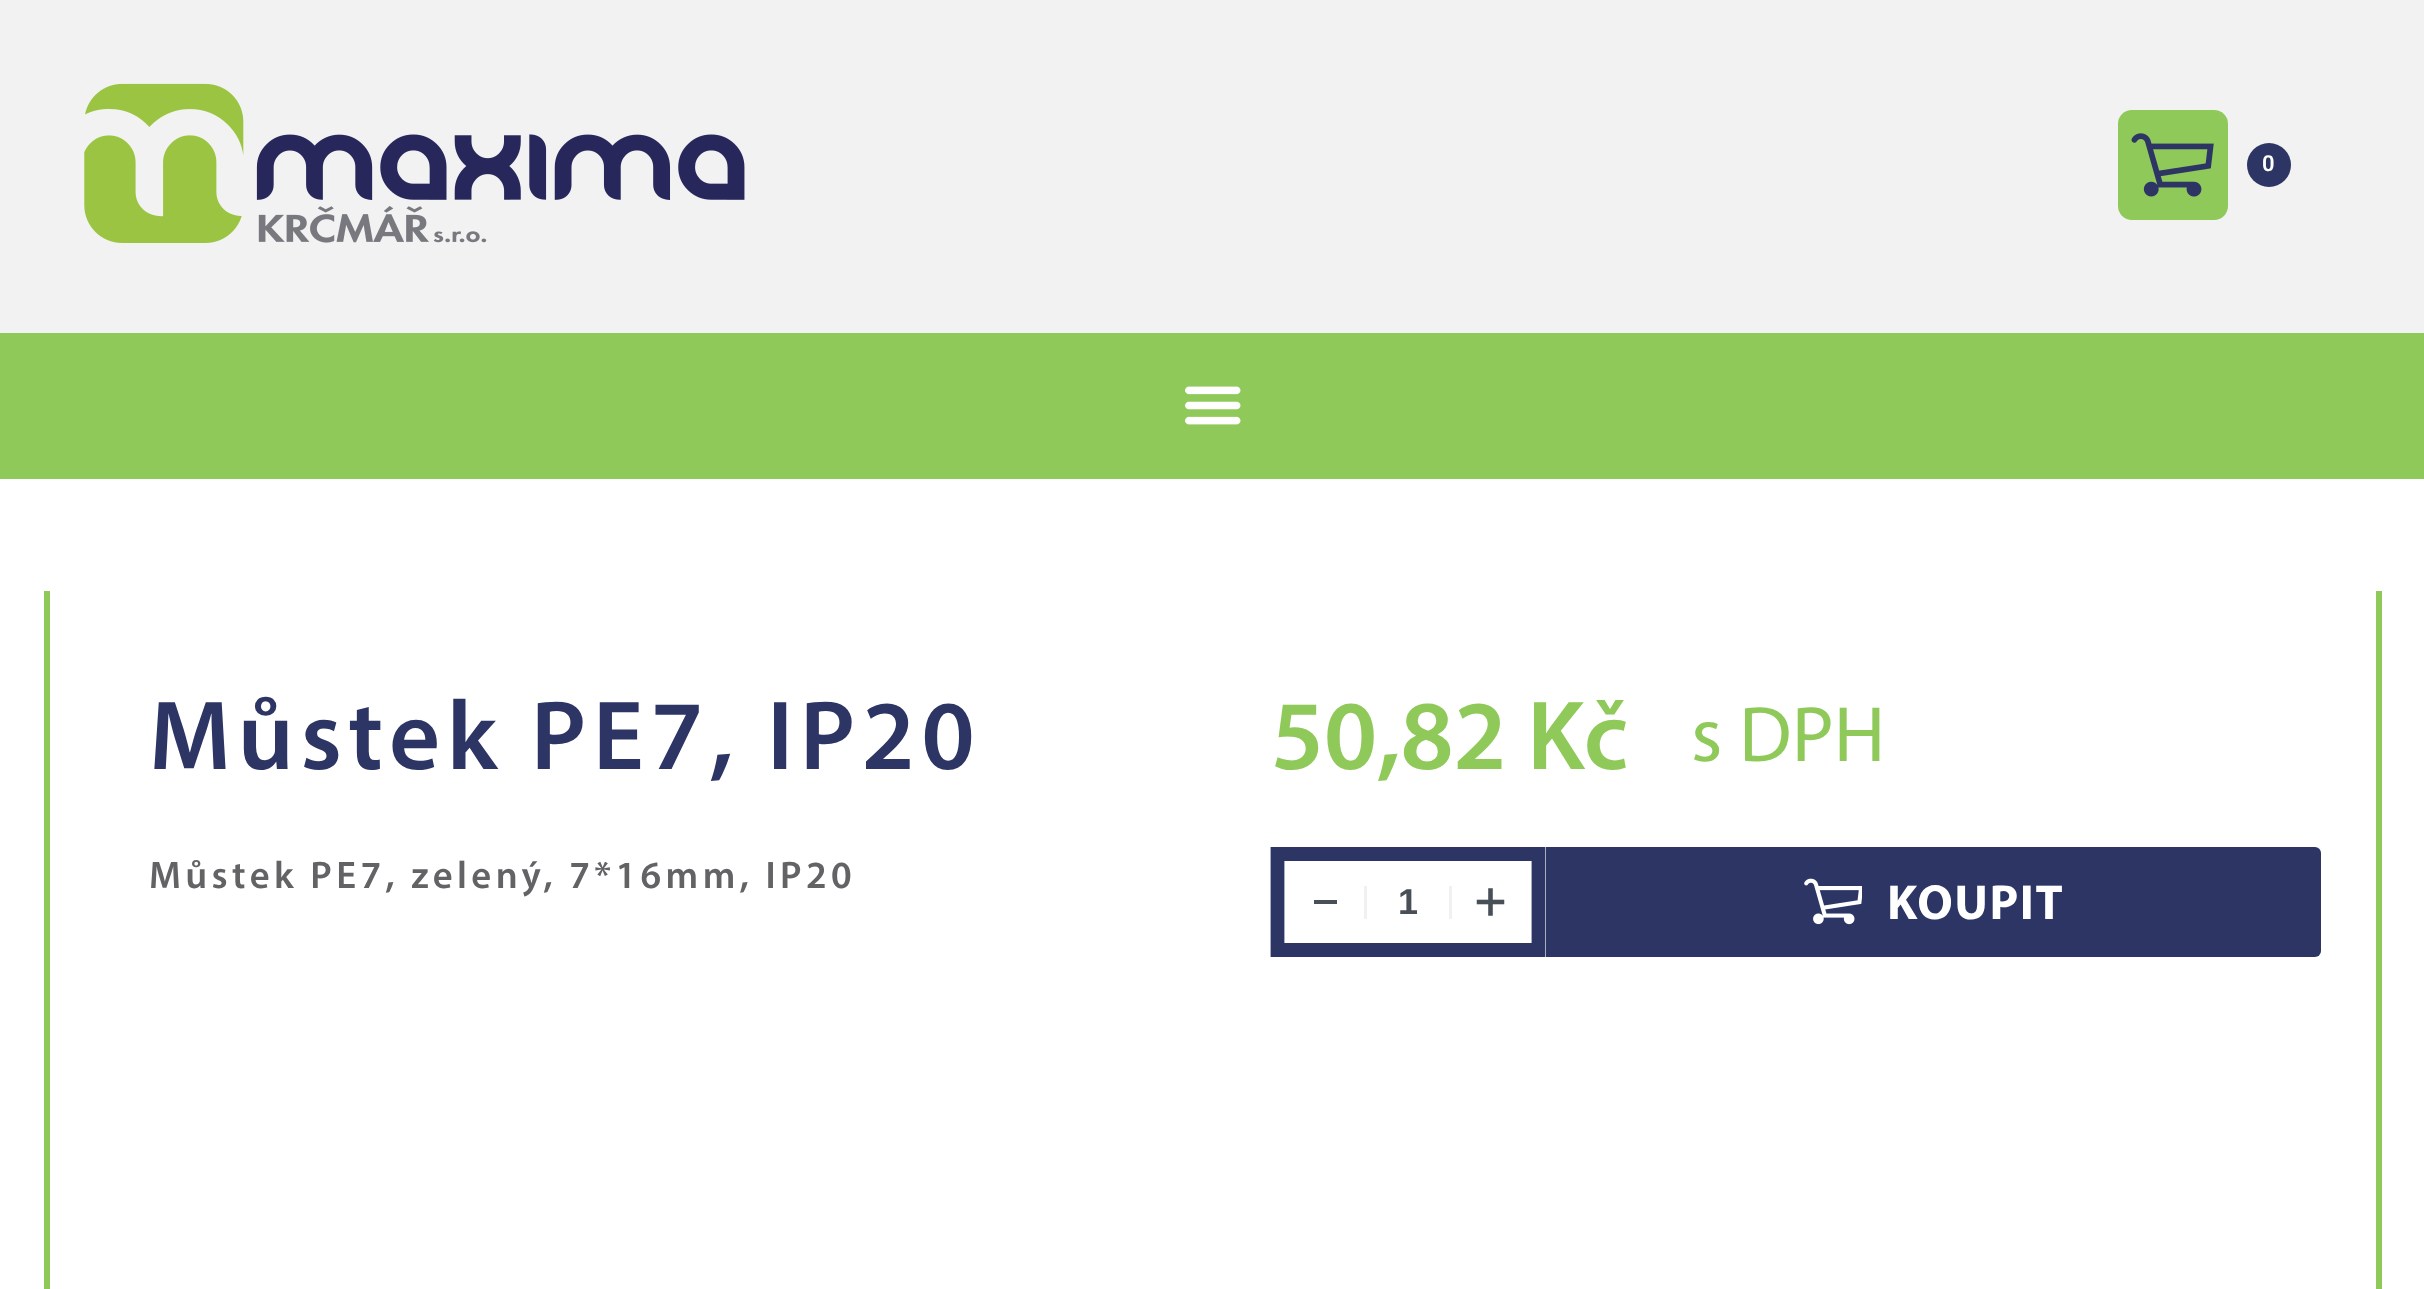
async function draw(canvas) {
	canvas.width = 2424;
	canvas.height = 1289;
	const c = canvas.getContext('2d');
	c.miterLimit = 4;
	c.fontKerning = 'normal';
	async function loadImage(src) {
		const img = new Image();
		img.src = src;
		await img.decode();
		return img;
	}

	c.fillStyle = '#fff';
	c.fillRect(0, 0, 2424, 1289);
	c.fillStyle = '#f2f2f2';
	c.fillRect(0, 0, 2424, 333);
	c.drawImage(await loadImage('img1.png'), 84, 83, 661, 160);
	c.fillStyle = '#8fc959';
	c.beginPath();
	c.roundRect(2118, 110, 110, 110, 14);
	c.fill();
	c.drawImage(await loadImage('img2.png'), 2131, 133, 83, 64);
	c.fillStyle = '#2c3564';
	c.beginPath();
	c.arc(2269, 165, 22, 0, 2 * Math.PI);
	c.fill();
	c.font = '600 22px Roboto';
	c.fillStyle = '#fff';
	c.fillText('0', 2262, 171);
	c.fillStyle = '#8fc959';
	c.fillRect(0, 333, 2424, 146);
	c.drawImage(await loadImage('img3.png'), 1185, 386, 56, 39);
	c.fillRect(2376, 591, 6, 698);
	c.fillRect(44, 591, 6, 698);
	c.letterSpacing = '6.6px';
	c.font = '600 99px Myriad';
	c.fillStyle = '#2c3564';
	c.fillText('Můstek PE7, IP20', 149, 769);
	c.letterSpacing = '4.4px';
	c.font = '600 38.5px Myriad';
	c.fillStyle = '#636366';
	c.fillText('Můstek PE7, zelený, 7*16mm, IP20', 149, 888);
	c.letterSpacing = '0px';
	c.font = '600 99px Myriad';
	c.fillStyle = '#8fc959';
	c.fillText('50,82 Kč', 1271, 769);
	c.font = '79px Myriad';
	c.fillText('s DPH', 1691, 761);
	c.beginPath();
	c.moveTo(1277.5, 854);
	c.lineTo(1538.5, 854);
	c.lineTo(1538.5, 950);
	c.lineTo(1277.5, 950);
	c.closePath();
	c.strokeStyle = '#2c3564';
	c.lineWidth = 13.8;
	c.stroke();
	c.fillStyle = '#484f56';
	c.fillRect(1314, 900, 23, 4);
	c.fillStyle = '#f0f1f1';
	c.fillRect(1364, 886, 3, 33);
	c.font = 'bold 36px Liberation Sans';
	c.fillStyle = '#484f56';
	c.fillText('1', 1398, 914);
	c.fillStyle = '#f0f1f1';
	c.fillRect(1449, 886, 3, 33);
	c.drawImage(await loadImage('img4.png'), 1476, 888, 29, 28);
	c.fillStyle = '#2c3564';
	c.beginPath();
	c.roundRect(1546, 847, 775, 110, [0, 6, 6, 0]);
	c.fill();
	c.drawImage(await loadImage('img5.png'), 1804, 878, 58, 47);
	c.letterSpacing = '1.5px';
	c.font = 'bold 49.5px Myriad';
	c.fillStyle = '#fff';
	c.fillText('KOUPIT', 1887, 919);
}

draw(document.querySelector('canvas'));
